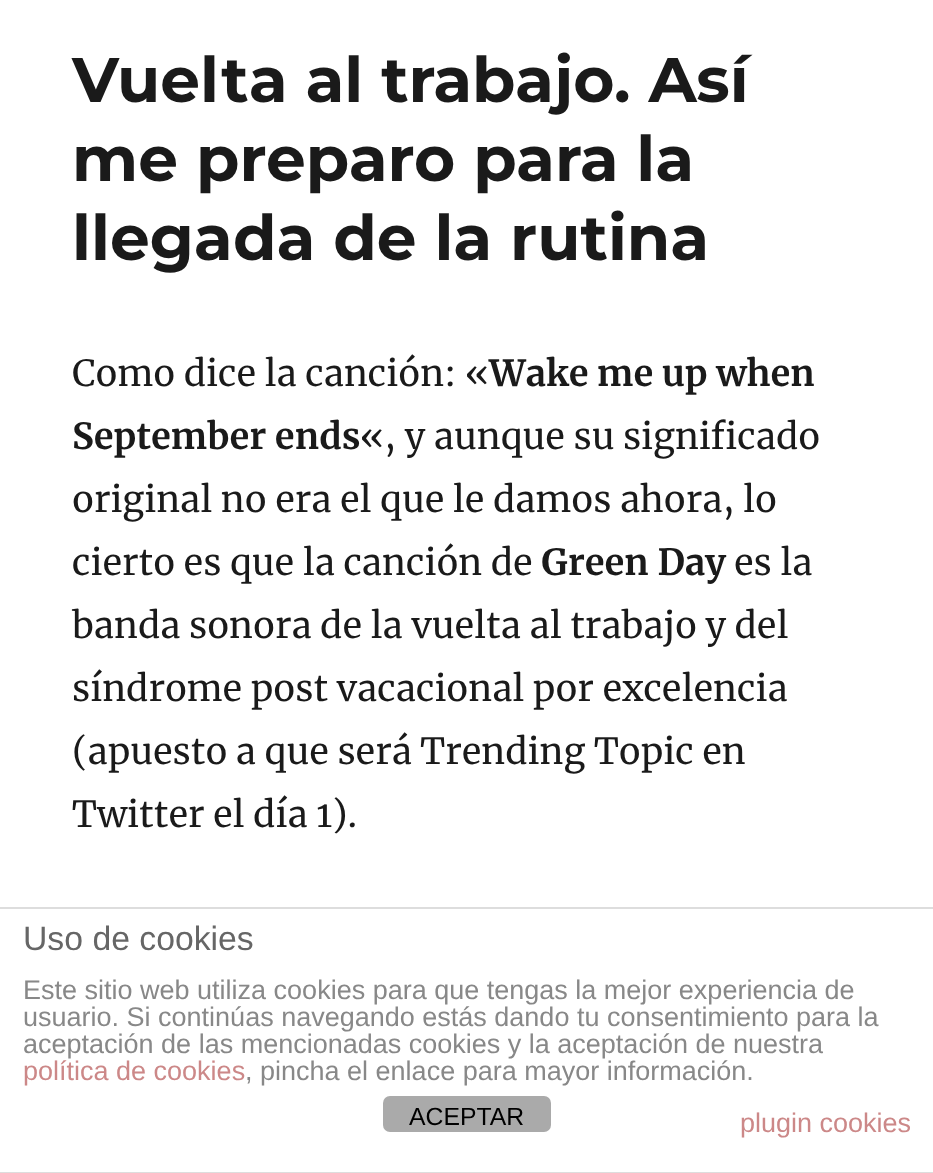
async function draw(canvas) {
	canvas.width = 933;
	canvas.height = 1173;
	const c = canvas.getContext('2d');
	c.miterLimit = 4;
	c.fontKerning = 'normal';

	c.fillStyle = '#fff';
	c.fillRect(0, 0, 933, 1173);
	c.font = '100 63px Montserrat';
	c.fillStyle = '#1a1a1a';
	for (const [text, x, y] of [
		['Vuelta al trabajo. Así', 72, 102],
		['me preparo para la', 72, 181],
		['llegada de la rutina', 72, 260],
	]) {
		c.fillText(text, x, y);
	}
	c.font = '36px Merriweather';
	c.fillText('Como dice la canción: «', 72, 386);
	c.font = 'bold 36px Merriweather';
	c.fillText('Wake me up when', 489, 386);
	c.fillText('September ends', 72, 449);
	c.font = '36px Merriweather';
	for (const [text, x, y] of [
		['«, y aunque su significado', 360, 449],
		['original no era el que le damos ahora, lo', 72, 512],
		['cierto es que la canción de', 72, 575],
	]) {
		c.fillText(text, x, y);
	}
	c.font = 'bold 36px Merriweather';
	c.fillText('Green Day', 541, 575);
	c.font = '36px Merriweather';
	for (const [text, x, y] of [
		['es la', 734, 575],
		['banda sonora de la vuelta al trabajo y del', 72, 638],
		['síndrome post vacacional por excelencia', 72, 701],
		['(apuesto a que será Trending Topic en', 72, 764],
		['Twitter el día 1).', 72, 827],
	]) {
		c.fillText(text, x, y);
	}
	c.fillStyle = '#ddd';
	c.fillRect(0, 907, 933, 2);
	c.fillRect(0, 1172, 933, 1);
	c.font = '33.75px Liberation Sans';
	c.fillStyle = '#666';
	c.fillText('Uso de cookies', 23, 950);
	c.font = '27px Liberation Sans';
	c.fillStyle = '#888';
	for (const [text, x, y] of [
		['Este sitio web utiliza cookies para que tengas la mejor experiencia de', 23, 999],
		['usuario. Si continúas navegando estás dando tu consentimiento para la', 23, 1026],
		['aceptación de las mencionadas cookies y la aceptación de nuestra', 23, 1053],
	]) {
		c.fillText(text, x, y);
	}
	c.fillStyle = '#c88';
	c.fillText('política de cookies', 23, 1080);
	c.fillStyle = '#888';
	c.fillText(', pincha el enlace para mayor información.', 245, 1080);
	c.fillStyle = '#c88';
	c.fillText('plugin cookies', 740, 1132);
	c.fillStyle = '#aaa';
	c.beginPath();
	c.roundRect(383, 1096, 168, 36, 7);
	c.fill();
	c.font = '24.75px Liberation Sans';
	c.fillStyle = '#000';
	c.fillText('ACEPTAR', 409, 1125);
}

draw(document.querySelector('canvas'));
